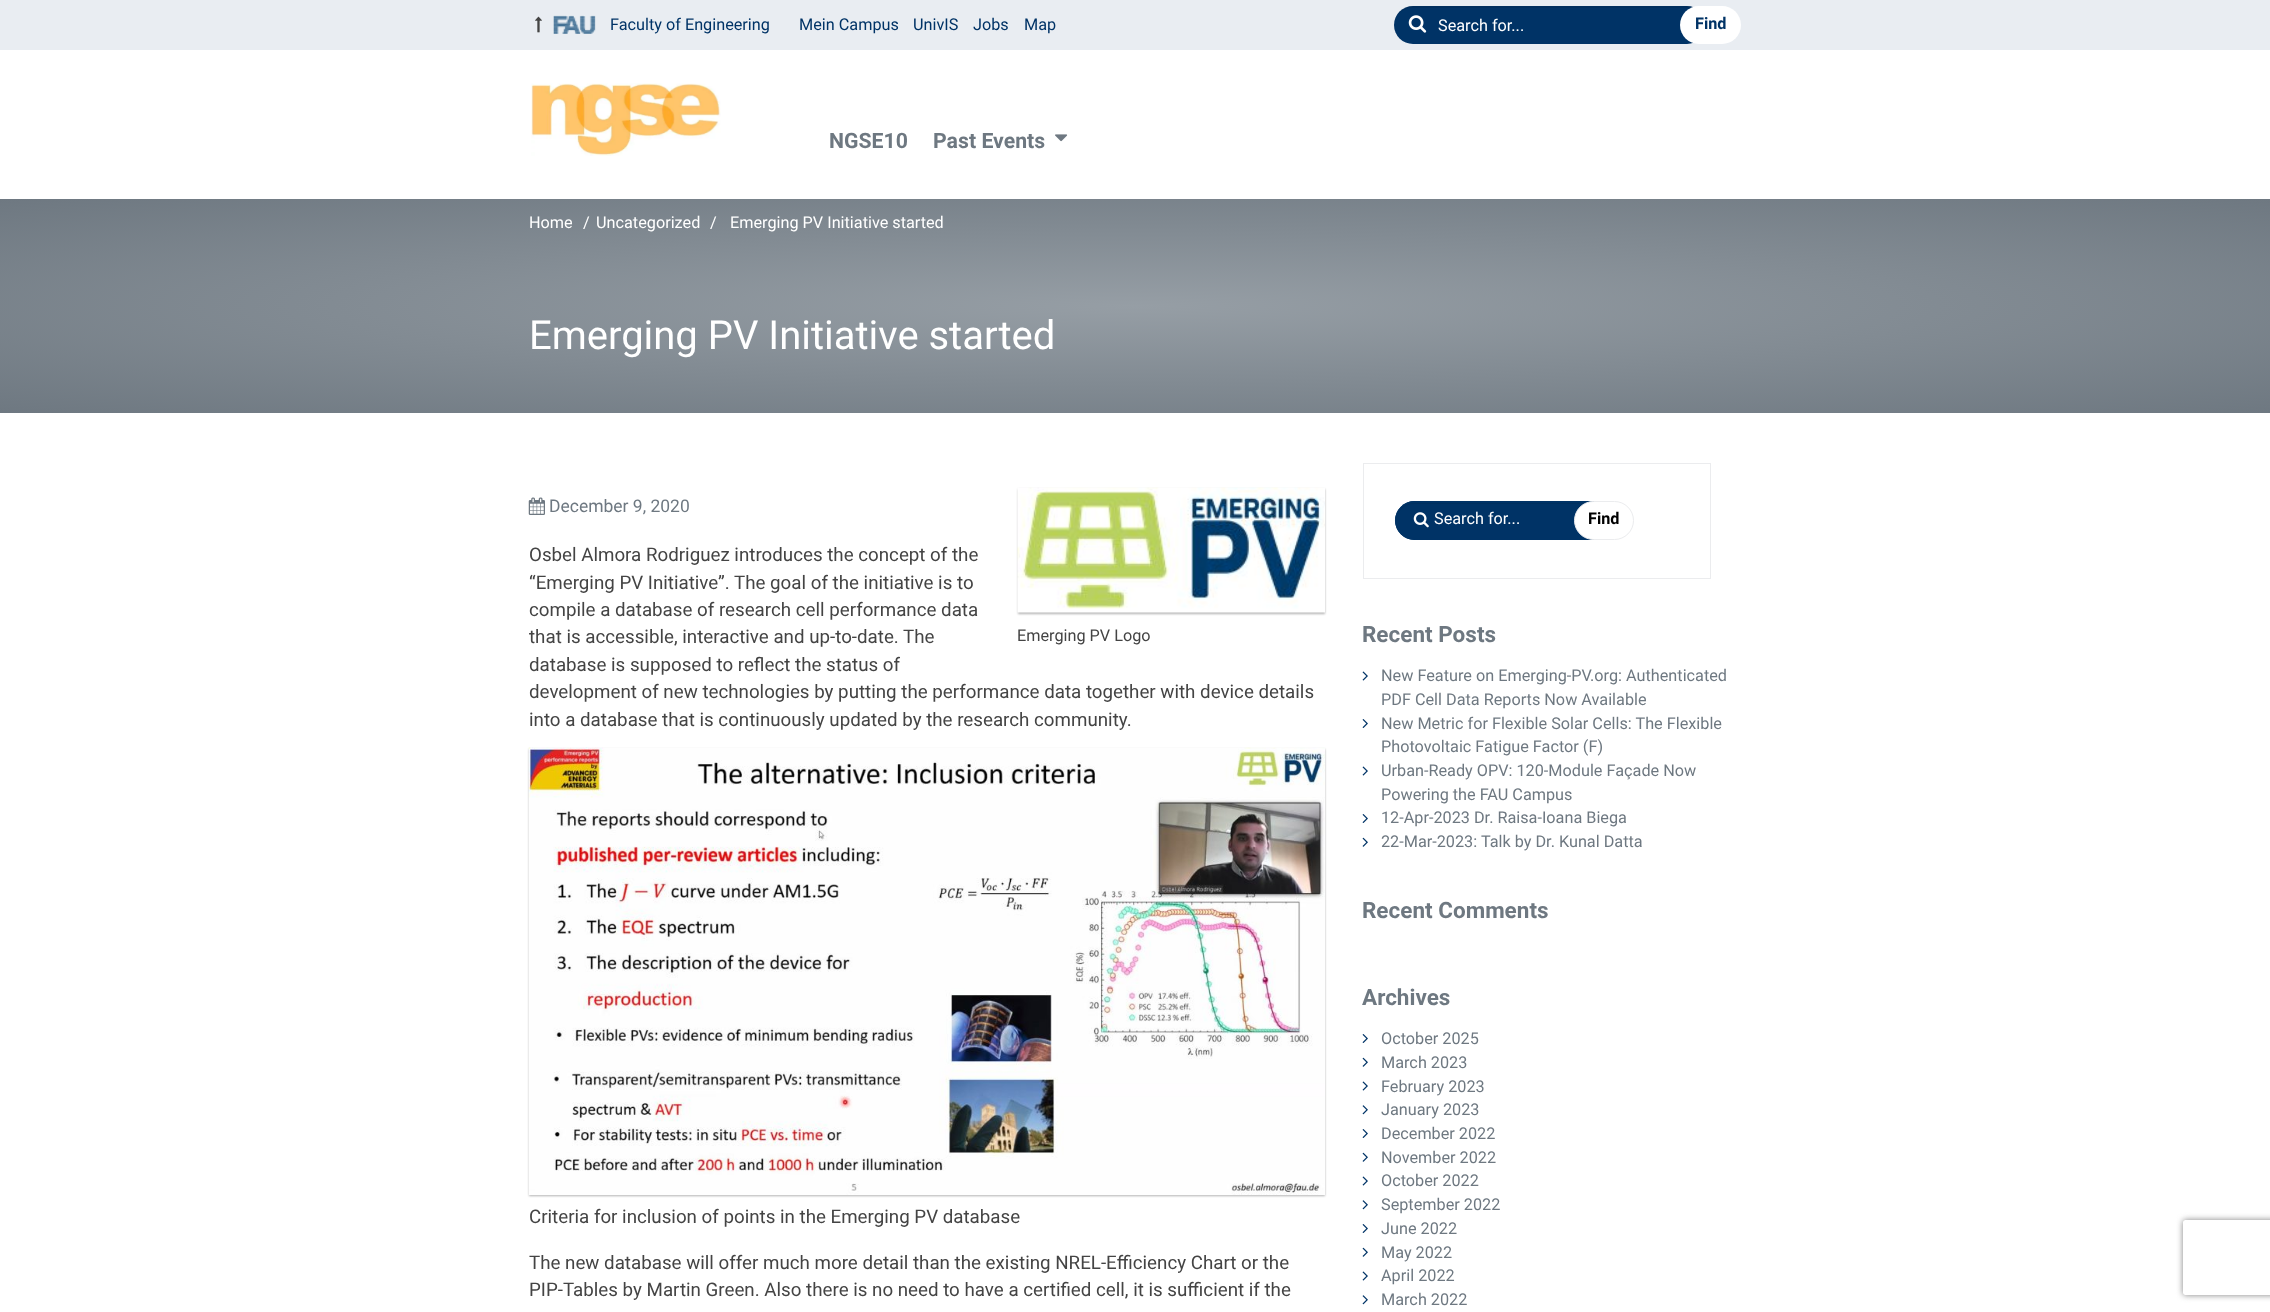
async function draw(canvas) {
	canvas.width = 2270;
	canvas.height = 1312;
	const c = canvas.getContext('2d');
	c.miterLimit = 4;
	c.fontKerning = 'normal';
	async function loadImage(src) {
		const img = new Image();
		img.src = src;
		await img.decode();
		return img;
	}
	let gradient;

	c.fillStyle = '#fff';
	c.fillRect(0, 0, 2270, 1312);
	c.fillStyle = '#e9edf2';
	c.fillRect(0, 0, 2270, 50);
	c.drawImage(await loadImage('img1.png'), 535, 16, 7, 17);
	c.drawImage(await loadImage('img2.png'), 553, 15, 43, 19);
	c.font = '16.25px Roboto';
	c.fillStyle = '#036';
	for (const [text, x, y] of [
		['Faculty of Engineering', 610, 30],
		['Mein Campus', 799, 30],
		['UnivIS', 913, 30],
		['Jobs', 973, 30],
		['Map', 1024, 30],
	]) {
		c.fillText(text, x, y);
	}
	c.beginPath();
	c.roundRect(1394, 6, 312, 38, 19);
	c.fill();
	c.fillStyle = '#00000012';
	c.beginPath();
	c.moveTo(1412, 8);
	c.lineTo(1688, 8);
	c.bezierCurveTo(1698, 8, 1706, 16, 1706, 26);
	c.bezierCurveTo(1706, 15, 1698, 6, 1687, 6);
	c.lineTo(1413, 6);
	c.bezierCurveTo(1402, 6, 1394, 15, 1394, 26);
	c.bezierCurveTo(1394, 16, 1402, 8, 1412, 8);
	c.closePath();
	c.fill();
	c.drawImage(await loadImage('img3.png'), 1408, 15, 19, 18);
	c.fillStyle = '#fff';
	c.fillText('Search for...', 1438, 31);
	c.beginPath();
	c.roundRect(1680, 6, 61, 38, 19);
	c.fill();
	c.font = 'bold 16.25px Roboto';
	c.fillStyle = '#036';
	c.fillText('Find', 1695, 29);
	c.drawImage(await loadImage('img4.png'), 531, 83, 190, 73);
	c.font = 'bold 21.25px Roboto';
	c.fillStyle = '#6e7881';
	c.fillText('NGSE10', 829, 148);
	c.fillText('Past Events', 933, 148);
	c.drawImage(await loadImage('img5.png'), 1055, 134, 13, 8);
	gradient = c.createRadialGradient(1135, 3252.52, 0, 1135, 3252.52, 1605);
	gradient.addColorStop(0, '#969ea5');
	gradient.addColorStop(1, '#6e7881');
	c.fillStyle = gradient;
	c.beginPath();
	c.rect(0, 199, 2270, 214);
	c.save();
	c.clip();
	c.scale(1, 151 / 1605);
	c.fillRect(0, 0, 2270, 13946);
	c.restore();
	c.font = '16.25px Roboto';
	c.fillStyle = '#fff';
	for (const [text, x, y] of [
		['Home', 529, 228],
		['/', 583, 228],
		['Uncategorized', 596, 228],
		['/', 710, 228],
		['Emerging PV Initiative started', 730, 228],
	]) {
		c.fillText(text, x, y);
	}
	c.font = '40px Roboto';
	c.fillText('Emerging PV Initiative started', 529, 349);
	c.drawImage(await loadImage('img6.png'), 528, 497, 17, 18);
	c.font = '17.5px Roboto';
	c.fillStyle = '#6e7881';
	c.fillText('December 9, 2020', 549, 512);
	c.font = '18.75px Roboto';
	c.fillStyle = '#444';
	for (const [text, x, y] of [
		['Osbel Almora Rodriguez introduces the concept of the', 529, 561],
		['“Emerging PV Initiative”. The goal of the initiative is to', 529, 589],
		['compile a database of research cell performance data', 529, 616],
		['that is accessible, interactive and up-to-date. The', 529, 643],
		['database is supposed to reflect the status of', 529, 671],
		['development of new technologies by putting the performance data together with device details', 529, 698],
		['into a database that is continuously updated by the research community.', 529, 726],
	]) {
		c.fillText(text, x, y);
	}
	c.fillStyle = '#0000004d';
	c.filter = 'blur(1px)';
	c.beginPath();
	c.rect(1018, 489, 307, 125);
	c.fill();
	c.filter = 'none';
	c.drawImage(await loadImage('img7.png'), 1017, 487, 308, 126);
	c.font = '16.25px Roboto';
	c.fillStyle = '#444';
	c.fillText('Emerging PV Logo', 1017, 641);
	c.fillStyle = '#0000004d';
	c.filter = 'blur(1px)';
	c.beginPath();
	c.rect(529, 749, 796, 447);
	c.fill();
	c.filter = 'none';
	c.drawImage(await loadImage('img8.png'), 528, 747, 797, 448);
	c.font = '18.75px Roboto';
	c.fillStyle = '#444';
	for (const [text, x, y] of [
		['Criteria for inclusion of points in the Emerging PV database', 529, 1223],
		['The new database will offer much more detail than the existing NREL-Efficiency Chart or the', 529, 1269],
		['PIP-Tables by Martin Green. Also there is no need to have a certified cell, it is sufficient if the', 529, 1296],
	]) {
		c.fillText(text, x, y);
	}
	c.strokeStyle = '#ebecee';
	c.strokeRect(1363.5, 463.5, 347, 115);
	c.fillStyle = '#036';
	c.beginPath();
	c.roundRect(1395, 501, 213, 39, 19.5);
	c.fill();
	c.fillStyle = '#002f5e';
	c.beginPath();
	c.moveTo(1414, 504);
	c.lineTo(1588, 504);
	c.bezierCurveTo(1598, 504, 1606, 512, 1606, 521);
	c.bezierCurveTo(1606, 511, 1598, 503, 1588, 503);
	c.lineTo(1414, 503);
	c.bezierCurveTo(1404, 503, 1396, 511, 1396, 521);
	c.bezierCurveTo(1396, 512, 1404, 504, 1414, 504);
	c.closePath();
	c.fill();
	c.beginPath();
	c.roundRect(1395.5, 501.5, 212, 38, 19);
	c.strokeStyle = '#036';
	c.stroke();
	c.drawImage(await loadImage('img9.png'), 1413, 512, 16, 16);
	c.font = '16.25px Roboto';
	c.fillStyle = '#fff';
	c.fillText('Search for...', 1434, 524);
	c.beginPath();
	c.roundRect(1574.5, 501.5, 59, 38, 19);
	c.fill();
	c.strokeStyle = '#ebecee';
	c.stroke();
	c.font = 'bold 16.25px Roboto';
	c.fillStyle = '#000';
	c.fillText('Find', 1588, 524);
	c.font = 'bold 22.5px Roboto';
	c.fillStyle = '#6e7881';
	c.fillText('Recent Posts', 1362, 642);
	c.drawImage(await loadImage('img10.png'), 1362, 671, 6, 10);
	c.font = '16.25px Roboto';
	c.fillText('New Feature on Emerging-PV.org: Authenticated', 1381, 681);
	c.fillText('PDF Cell Data Reports Now Available', 1381, 705);
	c.drawImage(await loadImage('img11.png'), 1362, 719, 6, 9);
	c.fillText('New Metric for Flexible Solar Cells: The Flexible', 1381, 729);
	c.fillText('Photovoltaic Fatigue Factor (F)', 1381, 752);
	c.drawImage(await loadImage('img10.png'), 1362, 766, 6, 10);
	c.fillText('Urban-Ready OPV: 120-Module Façade Now', 1381, 776);
	c.fillText('Powering the FAU Campus', 1381, 800);
	c.drawImage(await loadImage('img11.png'), 1362, 814, 6, 9);
	c.fillText('12-Apr-2023 Dr. Raisa-Ioana Biega', 1381, 823);
	c.drawImage(await loadImage('img12.png'), 1362, 837, 6, 10);
	c.fillText('22-Mar-2023: Talk by Dr. Kunal Datta', 1381, 847);
	c.font = 'bold 22.5px Roboto';
	c.fillText('Recent Comments', 1362, 918);
	c.fillText('Archives', 1362, 1005);
	c.drawImage(await loadImage('img11.png'), 1362, 1034, 6, 9);
	c.font = '16.25px Roboto';
	c.fillText('October 2025', 1381, 1044);
	c.drawImage(await loadImage('img12.png'), 1362, 1057, 6, 10);
	c.fillText('March 2023', 1381, 1068);
	c.drawImage(await loadImage('img10.png'), 1362, 1081, 6, 10);
	c.fillText('February 2023', 1381, 1092);
	c.drawImage(await loadImage('img13.png'), 1362, 1105, 6, 10);
	c.fillText('January 2023', 1381, 1115);
	c.drawImage(await loadImage('img11.png'), 1362, 1129, 6, 9);
	c.fillText('December 2022', 1381, 1139);
	c.drawImage(await loadImage('img12.png'), 1362, 1152, 6, 10);
	c.fillText('November 2022', 1381, 1163);
	c.drawImage(await loadImage('img10.png'), 1362, 1176, 6, 10);
	c.fillText('October 2022', 1381, 1186);
	c.drawImage(await loadImage('img13.png'), 1362, 1200, 6, 10);
	c.fillText('September 2022', 1381, 1210);
	c.drawImage(await loadImage('img11.png'), 1362, 1224, 6, 9);
	c.fillText('June 2022', 1381, 1234);
	c.drawImage(await loadImage('img12.png'), 1362, 1247, 6, 10);
	c.fillText('May 2022', 1381, 1258);
	c.drawImage(await loadImage('img10.png'), 1362, 1271, 6, 10);
	c.fillText('April 2022', 1381, 1281);
	c.drawImage(await loadImage('img13.png'), 1362, 1295, 6, 10);
	c.fillText('March 2022', 1381, 1305);
	c.save();
	c.beginPath();
	c.moveTo(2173, 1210);
	c.lineTo(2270, 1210);
	c.lineTo(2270, 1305);
	c.lineTo(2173, 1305);
	c.closePath();
	c.moveTo(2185.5, 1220);
	c.lineTo(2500.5, 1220);
	c.bezierCurveTo(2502, 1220, 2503, 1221, 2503, 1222.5);
	c.lineTo(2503, 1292.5);
	c.bezierCurveTo(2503, 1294, 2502, 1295, 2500.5, 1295);
	c.lineTo(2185.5, 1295);
	c.bezierCurveTo(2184, 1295, 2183, 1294, 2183, 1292.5);
	c.lineTo(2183, 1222.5);
	c.bezierCurveTo(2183, 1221, 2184, 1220, 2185.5, 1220);
	c.closePath();
	c.clip('evenodd');
	c.fillStyle = '#808080';
	c.filter = 'blur(3px)';
	c.beginPath();
	c.roundRect(2183, 1220, 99, 75, 2.5);
	c.fill();
	c.filter = 'none';
	c.restore();
}

draw(document.querySelector('canvas'));
